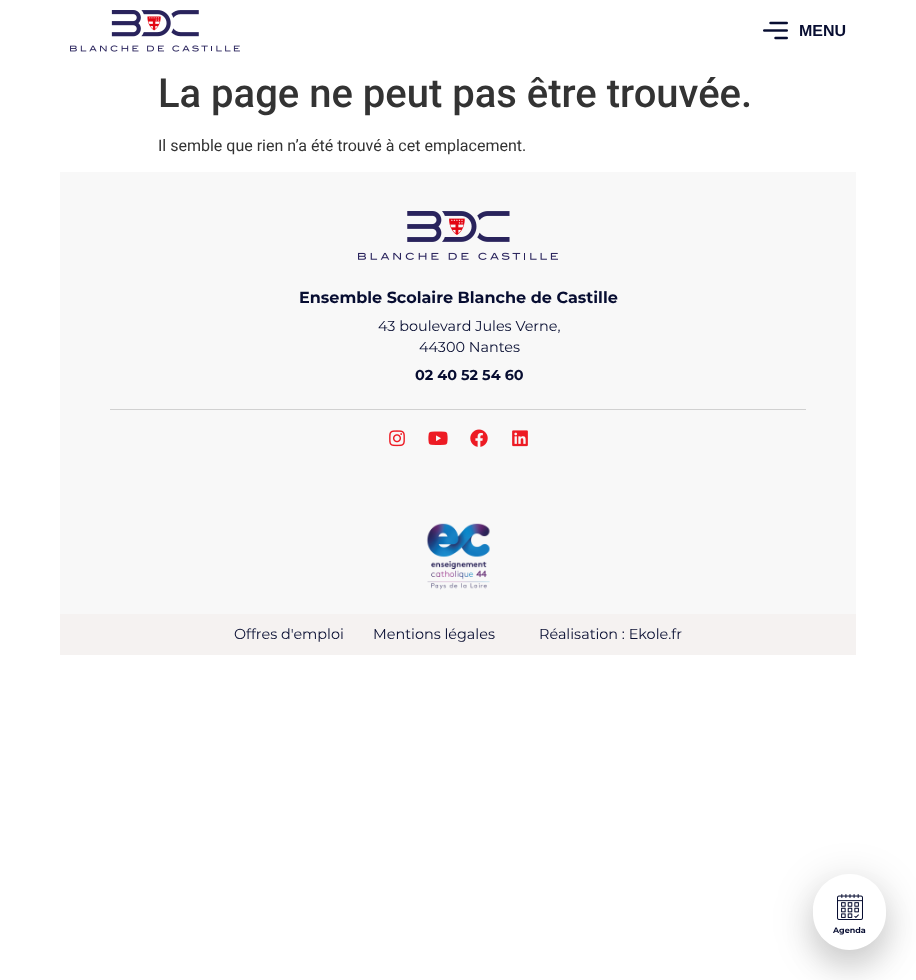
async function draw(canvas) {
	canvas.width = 916;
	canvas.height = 980;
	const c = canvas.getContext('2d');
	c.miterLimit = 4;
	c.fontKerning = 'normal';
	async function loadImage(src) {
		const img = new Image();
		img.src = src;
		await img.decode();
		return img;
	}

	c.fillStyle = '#fff';
	c.fillRect(0, 0, 916, 980);
	c.drawImage(await loadImage('img1.png'), 70, 10, 170, 42);
	c.drawImage(await loadImage('img2.png'), 763, 21, 25, 19);
	c.font = 'bold 16px Liberation Sans';
	c.fillStyle = '#070d31';
	c.fillText('MENU', 799, 36);
	c.font = '500 40px Roboto';
	c.fillStyle = '#333';
	c.fillText('La page ne peut pas être trouvée.', 158, 107);
	c.font = '16px Roboto';
	c.fillText('Il semble que rien n’a été trouvé à cet emplacement.', 158, 151);
	c.fillStyle = '#f8f8f8';
	c.fillRect(60, 172, 796, 442);
	c.drawImage(await loadImage('img3.png'), 358, 211, 200, 49);
	c.fillStyle = '#d1d1d1';
	c.fillRect(110, 409, 696, 1);
	c.font = 'bold 16px Montserrat';
	c.fillStyle = '#070d31';
	c.fillText('Ensemble Scolaire Blanche de Castille', 299, 303);
	c.font = '14.4px Montserrat';
	c.fillText('43 boulevard Jules Verne,', 378, 331);
	c.fillText('44300 Nantes', 419, 352);
	c.font = 'bold 14.4px Montserrat';
	c.fillText('02 40 52 54 60', 415, 380);
	c.drawImage(await loadImage('img4.png'), 389, 430, 16, 17);
	c.drawImage(await loadImage('img5.png'), 428, 431, 20, 14);
	c.drawImage(await loadImage('img6.png'), 470, 429, 18, 18);
	c.drawImage(await loadImage('img7.png'), 512, 430, 16, 17);
	c.drawImage(await loadImage('img8.png'), 426, 523, 64, 67);
	c.save();
	c.beginPath();
	c.moveTo(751, 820);
	c.lineTo(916, 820);
	c.lineTo(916, 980);
	c.lineTo(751, 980);
	c.closePath();
	c.moveTo(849.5, 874);
	c.bezierCurveTo(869.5, 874, 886, 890.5, 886, 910.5);
	c.lineTo(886, 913.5);
	c.bezierCurveTo(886, 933.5, 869.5, 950, 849.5, 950);
	c.bezierCurveTo(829.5, 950, 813, 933.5, 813, 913.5);
	c.lineTo(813, 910.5);
	c.bezierCurveTo(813, 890.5, 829.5, 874, 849.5, 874);
	c.closePath();
	c.clip('evenodd');
	c.fillStyle = '#00000029';
	c.filter = 'blur(20px)';
	c.beginPath();
	c.roundRect(812, 881, 75, 78, 37.5);
	c.fill();
	c.filter = 'none';
	c.restore();
	c.save();
	c.beginPath();
	c.moveTo(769, 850);
	c.lineTo(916, 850);
	c.lineTo(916, 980);
	c.lineTo(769, 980);
	c.closePath();
	c.moveTo(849.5, 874);
	c.bezierCurveTo(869.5, 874, 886, 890.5, 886, 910.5);
	c.lineTo(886, 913.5);
	c.bezierCurveTo(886, 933.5, 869.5, 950, 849.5, 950);
	c.bezierCurveTo(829.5, 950, 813, 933.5, 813, 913.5);
	c.lineTo(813, 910.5);
	c.bezierCurveTo(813, 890.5, 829.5, 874, 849.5, 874);
	c.closePath();
	c.clip('evenodd');
	c.fillStyle = '#00000017';
	c.filter = 'blur(14px)';
	c.beginPath();
	c.roundRect(812, 893, 75, 78, 37.5);
	c.fill();
	c.filter = 'none';
	c.restore();
	c.drawImage(await loadImage('img9.png'), 837, 894, 26, 26);
	c.font = 'bold 8px Montserrat';
	c.fillText('Agenda', 833, 933);
	c.fillStyle = '#f5f2f1';
	c.fillRect(60, 614, 796, 41);
	c.font = '14.4px Montserrat';
	c.fillStyle = '#070d31';
	for (const [text, x, y] of [
		['Offres d\'emploi', 234, 639],
		['Mentions légales', 373, 639],
		['Réalisation : Ekole.fr', 539, 639],
	]) {
		c.fillText(text, x, y);
	}
}

draw(document.querySelector('canvas'));
